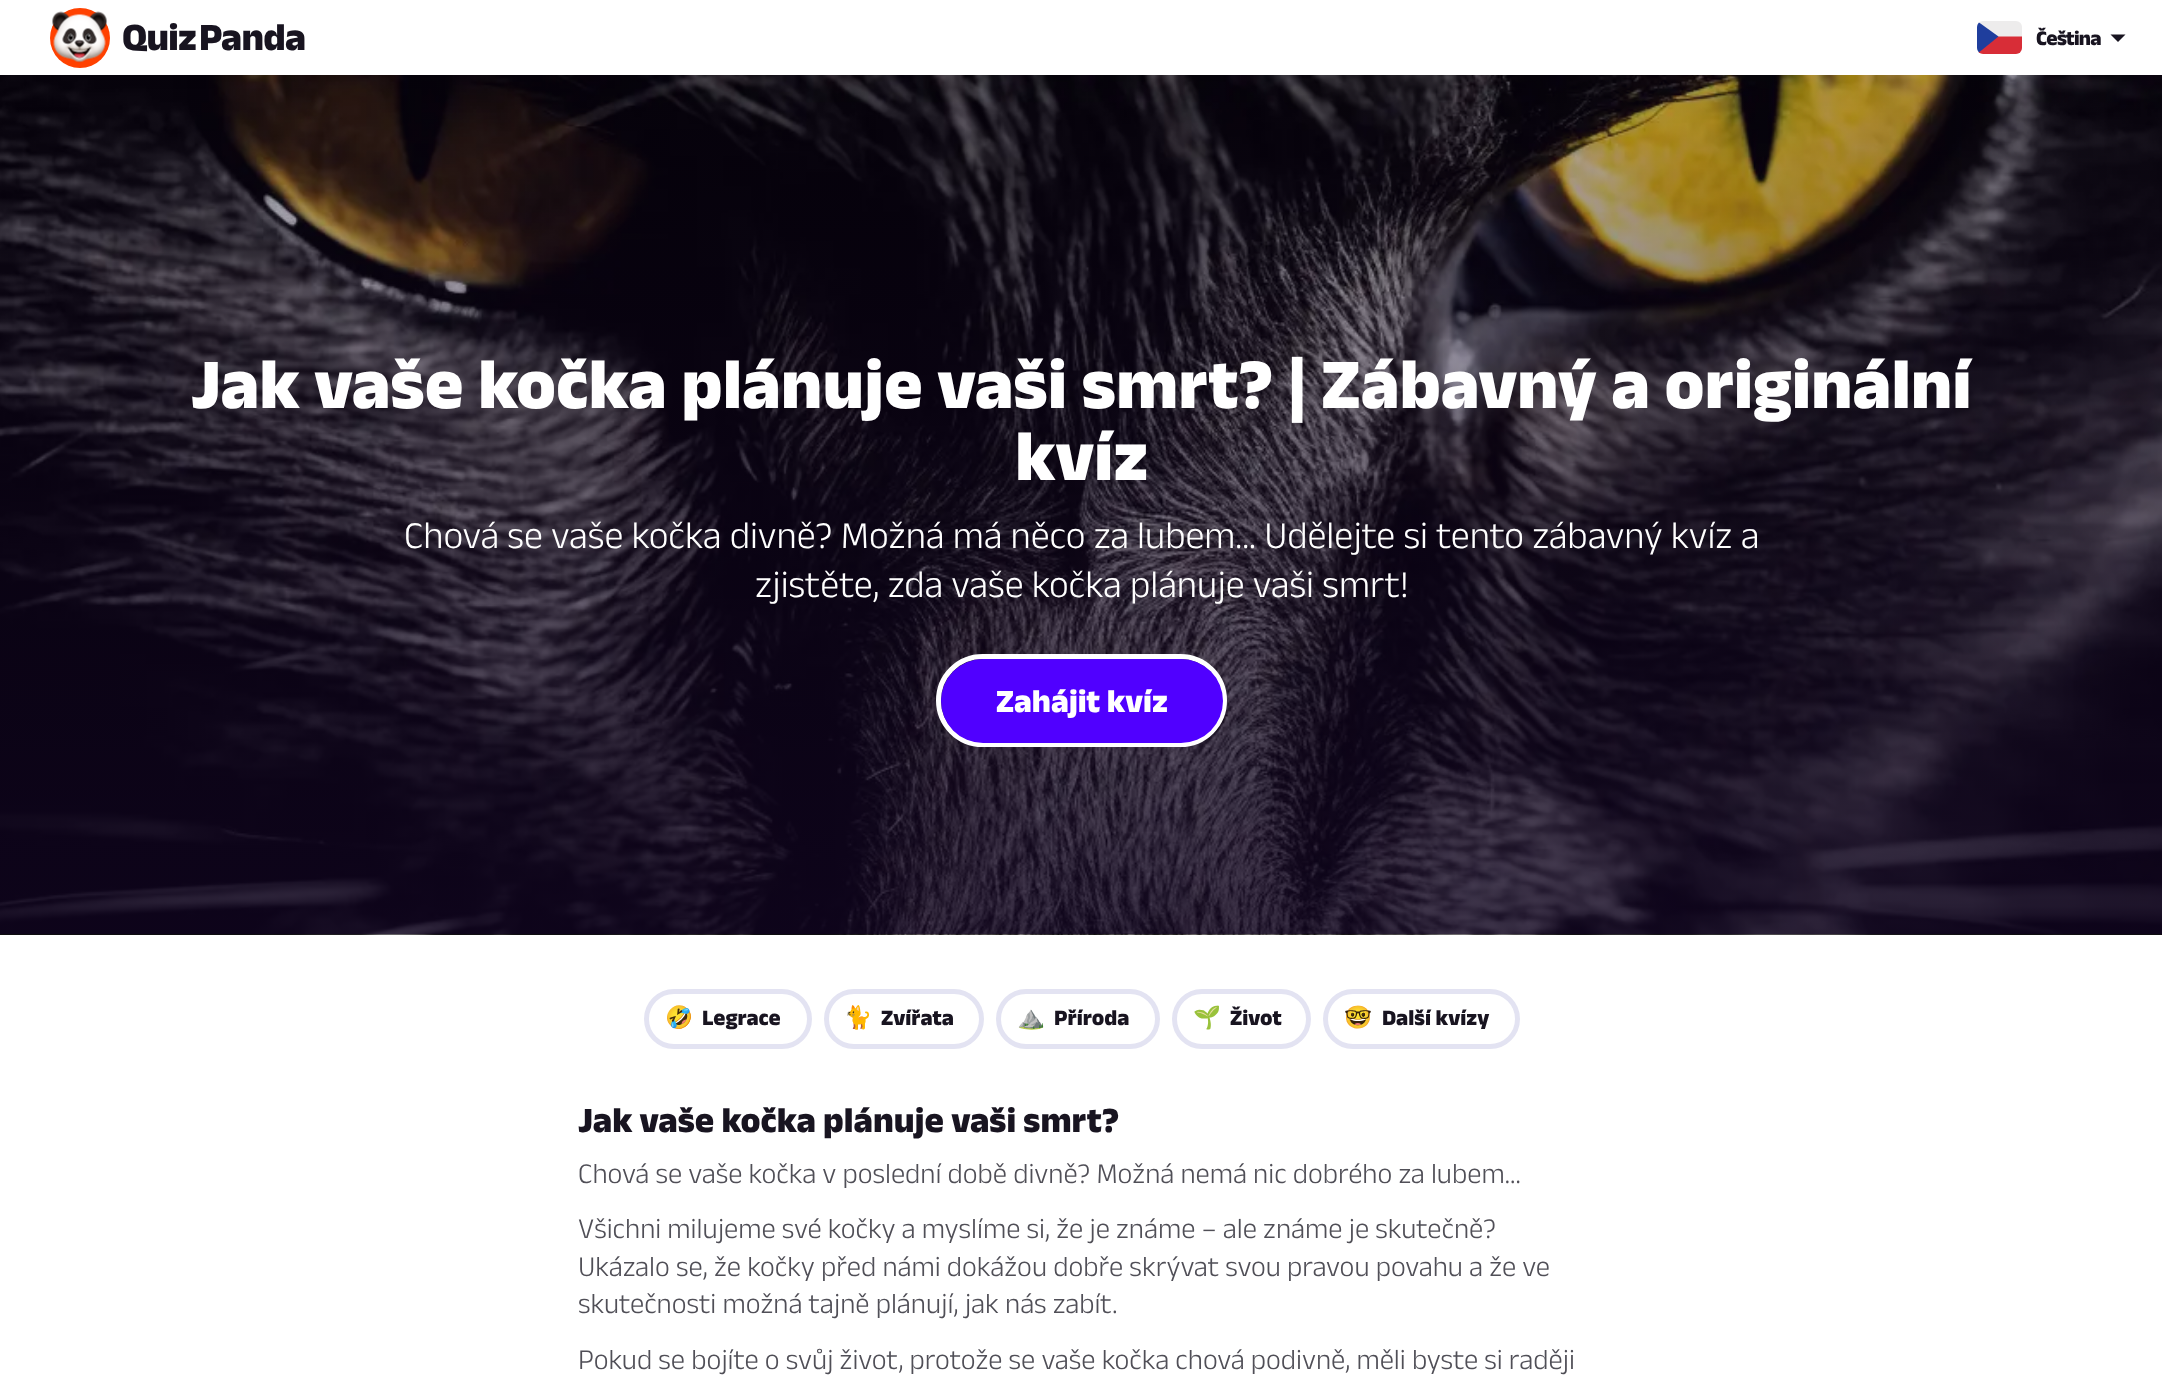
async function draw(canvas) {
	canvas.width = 2162;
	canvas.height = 1381;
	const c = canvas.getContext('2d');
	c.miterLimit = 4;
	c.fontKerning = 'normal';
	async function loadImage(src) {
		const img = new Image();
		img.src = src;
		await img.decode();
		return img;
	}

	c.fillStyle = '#fff';
	c.fillRect(0, 0, 2162, 1381);
	c.fillStyle = '#ff4100';
	c.beginPath();
	c.arc(80, 38, 30, 0, 2 * Math.PI);
	c.fill();
	c.drawImage(await loadImage('img1.png'), 52, 11, 55, 52);
	c.letterSpacing = '-0.75px';
	c.font = '800 39px Anek Latin';
	c.fillStyle = '#181420';
	c.fillText('Quiz', 122, 50);
	c.fillText('Panda', 199, 50);
	c.drawImage(await loadImage('img2.png'), 1977, 21, 45, 33);
	c.font = '800 21px Anek Latin';
	c.fillText('Čeština', 2036, 45);
	c.beginPath();
	c.moveTo(2110.5, 34.5);
	c.lineTo(2125.5, 34.5);
	c.lineTo(2118, 42);
	c.closePath();
	c.fill();
	c.fillStyle = '#1d1c1b';
	c.fillRect(0, 934, 2162, 1);
	c.drawImage(await loadImage('img3.png'), 0, 75, 2162, 860);
	c.letterSpacing = '0px';
	c.font = '800 72px Anek Latin';
	c.fillStyle = '#fff';
	c.fillText('Jak vaše kočka plánuje vaši smrt? | Zábavný a originální', 191, 408);
	c.fillText('kvíz', 1015, 480);
	c.font = '300 38.4px Anek Latin';
	c.fillText('Chová se vaše kočka divně? Možná má něco za lubem... Udělejte si tento zábavný kvíz a', 404, 548);
	c.fillText('zjistěte, zda vaše kočka plánuje vaši smrt!', 755, 597);
	c.beginPath();
	c.roundRect(938.5, 656.5, 286, 88, 44);
	c.strokeStyle = '#fff';
	c.lineWidth = 5;
	c.stroke();
	c.fillStyle = '#5000ff';
	c.beginPath();
	c.roundRect(941, 659, 282, 84, 42);
	c.fill();
	c.font = '800 33px Anek Latin';
	c.fillStyle = '#fff';
	c.fillText('Zahájit kvíz', 996, 712);
	c.beginPath();
	c.roundRect(646.5, 991.5, 163, 55, 27.5);
	c.strokeStyle = '#e3e3f2';
	c.stroke();
	c.font = 'bold 22.5px Noto Color Emoji';
	c.fillStyle = '#181420';
	c.fillText('🤣', 665, 1025);
	c.font = '800 22.5px Anek Latin';
	c.fillText('Legrace', 702, 1025);
	c.beginPath();
	c.roundRect(826.5, 991.5, 155, 55, 27.5);
	c.stroke();
	c.font = 'bold 22.5px Noto Color Emoji';
	c.fillText('🐈', 844, 1025);
	c.font = '800 22.5px Anek Latin';
	c.fillText('Zvířata', 881, 1025);
	c.beginPath();
	c.roundRect(998.5, 991.5, 159, 55, 27.5);
	c.stroke();
	c.font = 'bold 22.5px Noto Color Emoji';
	c.fillText('⛰️', 1017, 1025);
	c.font = '800 22.5px Anek Latin';
	c.fillText('Příroda', 1054, 1025);
	c.beginPath();
	c.roundRect(1174.5, 991.5, 134, 55, 27.5);
	c.stroke();
	c.font = 'bold 22.5px Noto Color Emoji';
	c.fillText('🌱', 1193, 1025);
	c.font = '800 22.5px Anek Latin';
	c.fillText('Život', 1230, 1025);
	c.beginPath();
	c.roundRect(1325.5, 991.5, 192, 55, 27.5);
	c.stroke();
	c.font = 'bold 22.5px Noto Color Emoji';
	c.fillText('🤓', 1344, 1025);
	c.font = '800 22.5px Anek Latin';
	c.fillText('Další kvízy', 1382, 1025);
	c.font = '800 36px Anek Latin';
	c.fillText('Jak vaše kočka plánuje vaši smrt?', 578, 1132);
	c.font = '300 28.8px Anek Latin';
	c.fillStyle = '#504f57';
	for (const [text, x, y] of [
		['Chová se vaše kočka v poslední době divně? Možná nemá nic dobrého za lubem…', 578, 1183],
		['Všichni milujeme své kočky a myslíme si, že je známe – ale známe je skutečně?', 578, 1238],
		['Ukázalo se, že kočky před námi dokážou dobře skrývat svou pravou povahu a že ve', 578, 1276],
		['skutečnosti možná tajně plánují, jak nás zabít.', 578, 1313],
		['Pokud se bojíte o svůj život, protože se vaše kočka chová podivně, měli byste si raději', 578, 1369],
	]) {
		c.fillText(text, x, y);
	}
}

draw(document.querySelector('canvas'));
